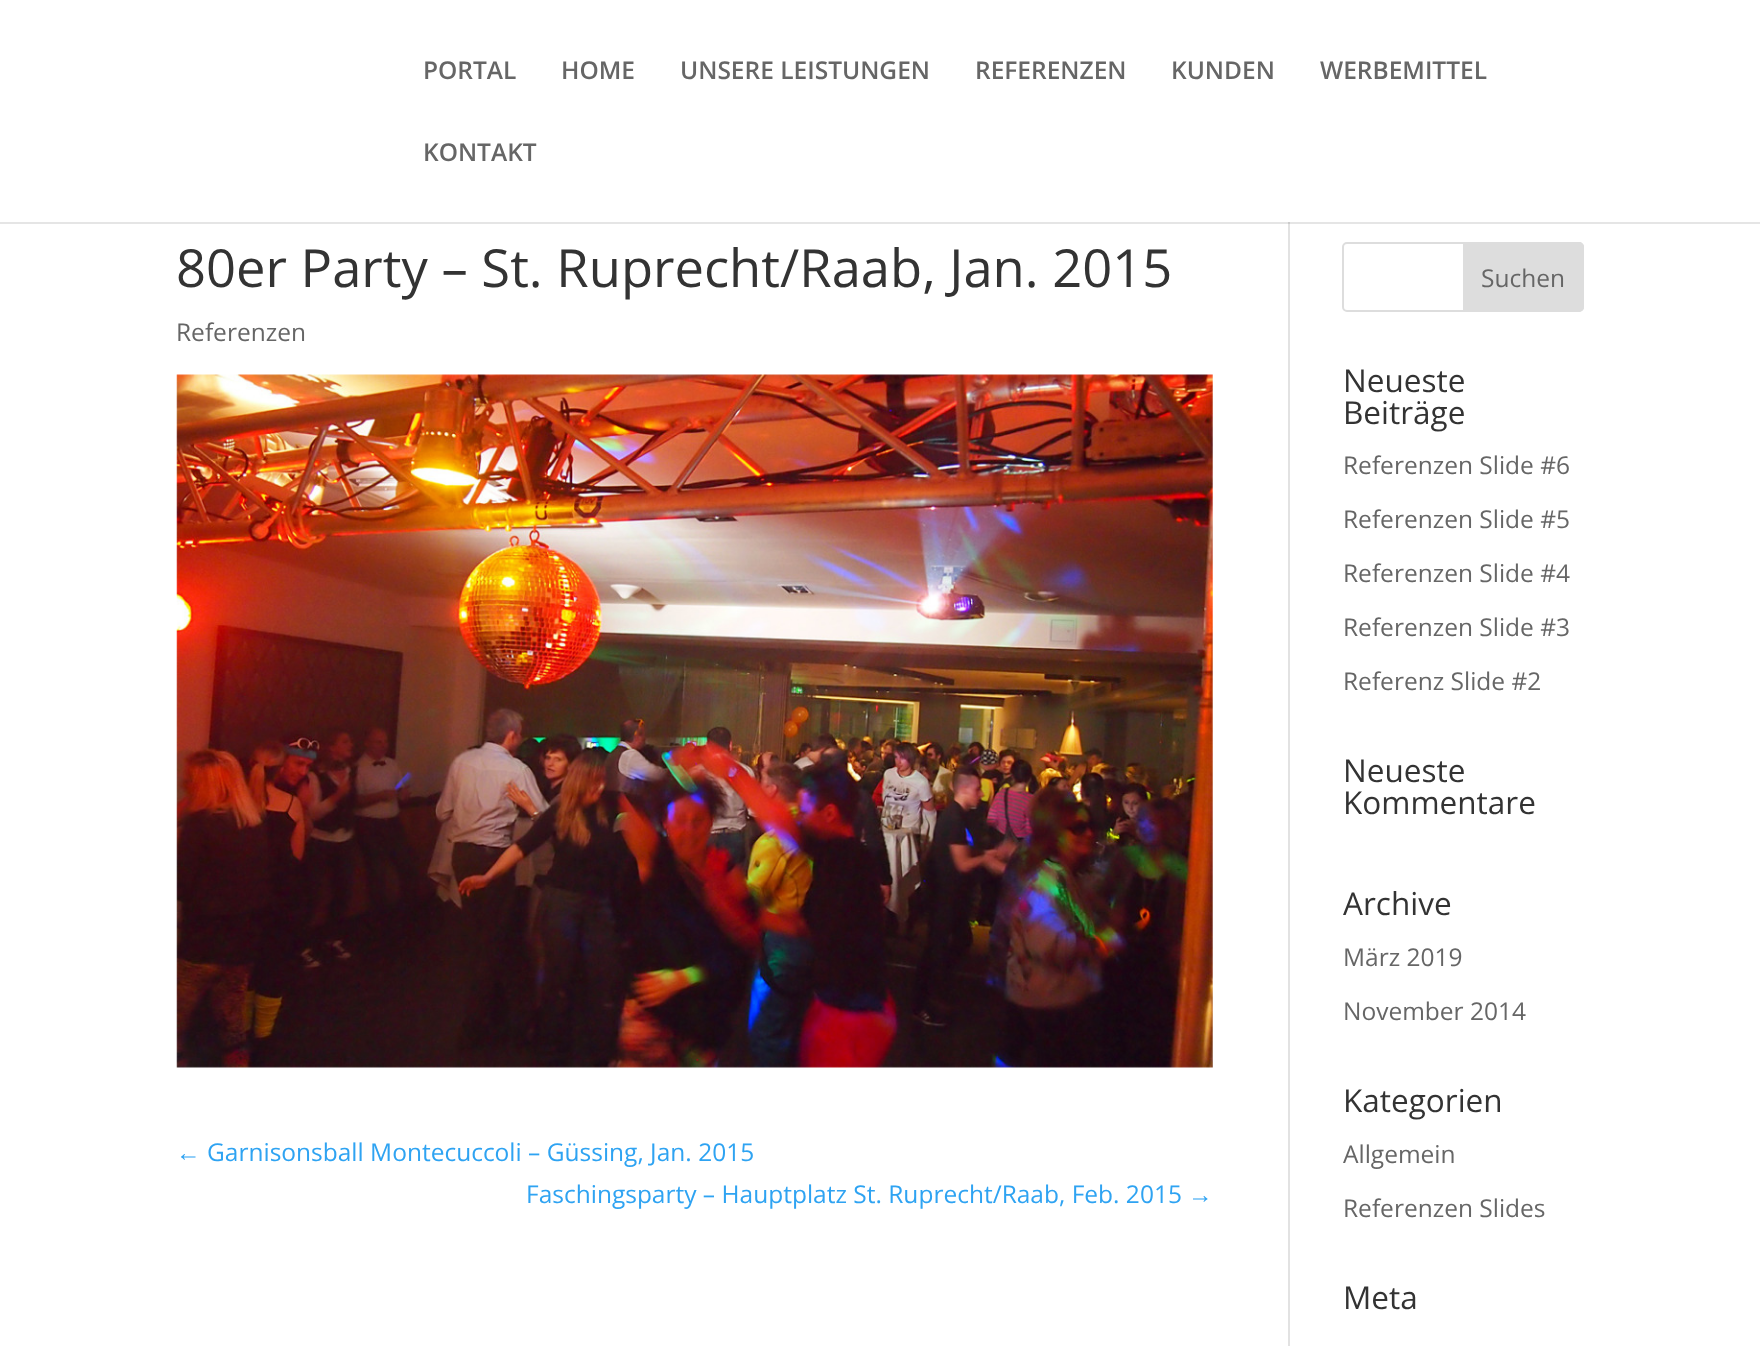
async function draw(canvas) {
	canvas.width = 1760;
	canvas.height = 1346;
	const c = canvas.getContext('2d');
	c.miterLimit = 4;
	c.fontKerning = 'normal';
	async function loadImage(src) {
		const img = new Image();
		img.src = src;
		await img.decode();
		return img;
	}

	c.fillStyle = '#fff';
	c.fillRect(0, 0, 1760, 1346);
	c.fillStyle = '#e2e2e2';
	c.fillRect(1288, 222, 2, 1124);
	c.fillStyle = '#0000001a';
	c.beginPath();
	c.moveTo(0, 222);
	c.lineTo(0, 224);
	c.lineTo(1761, 224);
	c.lineTo(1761, 2);
	c.lineTo(1760, 2);
	c.lineTo(1760, 222);
	c.closePath();
	c.fill();
	c.font = '600 24.5px Open Sans';
	c.fillStyle = '#666';
	for (const [text, x, y] of [
		['PORTAL', 423, 79],
		['HOME', 561, 79],
		['UNSERE LEISTUNGEN', 680, 79],
		['REFERENZEN', 975, 79],
		['KUNDEN', 1171, 79],
		['WERBEMITTEL', 1320, 79],
		['KONTAKT', 423, 161],
	]) {
		c.fillText(text, x, y);
	}
	c.font = '52.5px Open Sans';
	c.fillStyle = '#333';
	c.fillText('80er Party – St. Ruprecht/Raab, Jan. 2015', 176, 287);
	c.font = '24.5px Open Sans';
	c.fillStyle = '#666';
	c.fillText('Referenzen', 176, 341);
	c.drawImage(await loadImage('img1.png'), 176, 374, 1037, 694);
	c.font = '24.5px Liberation Sans';
	c.fillStyle = '#2ea3f2';
	c.fillText('←', 176, 1161);
	c.font = '24.5px Open Sans';
	c.fillText('Garnisonsball Montecuccoli – Güssing, Jan. 2015', 207, 1161);
	c.fillText('Faschingsparty – Hauptplatz St. Ruprecht/Raab, Feb. 2015', 526, 1203);
	c.font = '24.5px Liberation Sans';
	c.fillText('→', 1188, 1203);
	c.beginPath();
	c.roundRect(1343, 243, 240, 68, 4);
	c.strokeStyle = '#ddd';
	c.lineWidth = 2;
	c.stroke();
	c.fillStyle = '#ddd';
	c.beginPath();
	c.roundRect(1464, 243, 119, 68, [0, 4, 4, 0]);
	c.fill();
	c.stroke();
	c.font = '24.5px Open Sans';
	c.fillStyle = '#666';
	c.fillText('Suchen', 1481, 287);
	c.font = '31.5px Open Sans';
	c.fillStyle = '#333';
	c.fillText('Neueste', 1343, 392);
	c.fillText('Beiträge', 1343, 424);
	c.font = '24.5px Open Sans';
	c.fillStyle = '#666';
	for (const [text, x, y] of [
		['Referenzen Slide #6', 1343, 474],
		['Referenzen Slide #5', 1343, 528],
		['Referenzen Slide #4', 1343, 582],
		['Referenzen Slide #3', 1343, 636],
		['Referenz Slide #2', 1343, 690],
	]) {
		c.fillText(text, x, y);
	}
	c.font = '31.5px Open Sans';
	c.fillStyle = '#333';
	for (const [text, x, y] of [
		['Neueste', 1343, 782],
		['Kommentare', 1343, 814],
		['Archive', 1343, 915],
	]) {
		c.fillText(text, x, y);
	}
	c.font = '24.5px Open Sans';
	c.fillStyle = '#666';
	c.fillText('März 2019', 1343, 966);
	c.fillText('November 2014', 1343, 1020);
	c.font = '31.5px Open Sans';
	c.fillStyle = '#333';
	c.fillText('Kategorien', 1343, 1112);
	c.font = '24.5px Open Sans';
	c.fillStyle = '#666';
	c.fillText('Allgemein', 1343, 1163);
	c.fillText('Referenzen Slides', 1343, 1217);
	c.font = '31.5px Open Sans';
	c.fillStyle = '#333';
	c.fillText('Meta', 1343, 1309);
}

draw(document.querySelector('canvas'));
